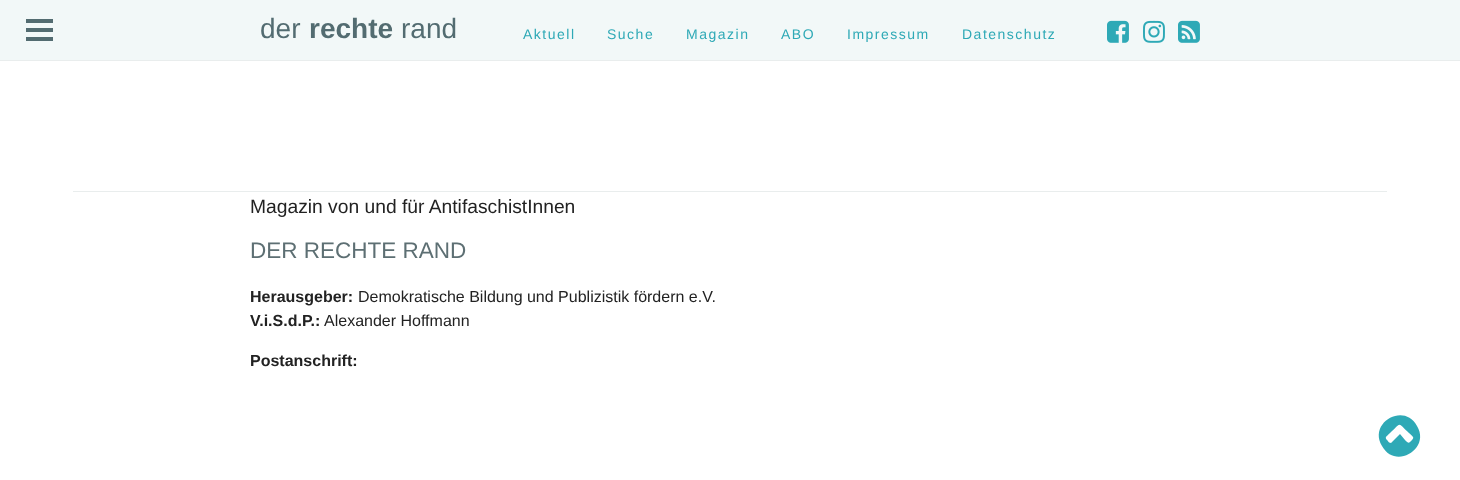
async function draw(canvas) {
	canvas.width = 1460;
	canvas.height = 480;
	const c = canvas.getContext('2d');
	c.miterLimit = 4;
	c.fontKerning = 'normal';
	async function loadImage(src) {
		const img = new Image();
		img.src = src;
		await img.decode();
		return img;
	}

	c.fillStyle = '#fff';
	c.fillRect(0, 0, 1460, 480);
	for (const [x, y, w, h, color] of [
		[0, 0, 1460, 60, '#f2f8f8'],
		[26, 19, 27, 4, '#536c71'],
		[26, 28, 27, 4, '#536c71'],
		[26, 37, 27, 4, '#536c71'],
		[0, 60, 1460, 1, '#e9eded'],
	]) {
		c.fillStyle = color;
		c.fillRect(x, y, w, h);
	}
	c.font = '28px Liberation Sans';
	c.fillStyle = '#536c71';
	c.fillText('der', 260, 38);
	c.font = 'bold 28px Liberation Sans';
	c.fillText('rechte', 309, 38);
	c.font = '28px Liberation Sans';
	c.fillText('rand', 401, 38);
	c.letterSpacing = '1.5px';
	c.font = '14px Liberation Sans';
	c.fillStyle = '#2ea9b6';
	for (const [text, x, y] of [
		['Aktuell', 523, 39],
		['Suche', 607, 39],
		['Magazin', 686, 39],
		['ABO', 781, 39],
		['Impressum', 847, 39],
		['Datenschutz', 962, 39],
	]) {
		c.fillText(text, x, y);
	}
	c.drawImage(await loadImage('img1.png'), 1107, 20, 22, 23);
	c.drawImage(await loadImage('img2.png'), 1143, 20, 22, 23);
	c.drawImage(await loadImage('img3.png'), 1178, 20, 22, 23);
	c.fillStyle = '#e9eded';
	c.fillRect(73, 191, 1314, 1);
	c.letterSpacing = '0px';
	c.font = '19.25px Liberation Sans';
	c.fillStyle = '#222';
	c.fillText('Magazin von und für AntifaschistInnen', 250, 213);
	c.font = '22.5px Liberation Sans';
	c.fillStyle = '#5d6f73';
	c.fillText('DER RECHTE RAND', 250, 258);
	c.font = 'bold 16px Liberation Sans';
	c.fillStyle = '#222';
	c.fillText('Herausgeber:', 250, 302);
	c.font = '16px Liberation Sans';
	c.fillText('Demokratische Bildung und Publizistik fördern e.V.', 358, 302);
	c.font = 'bold 16px Liberation Sans';
	c.fillText('V.i.S.d.P.:', 250, 326);
	c.font = '16px Liberation Sans';
	c.fillText('Alexander Hoffmann', 324, 326);
	c.font = 'bold 16px Liberation Sans';
	c.fillText('Postanschrift:', 250, 366);
	c.fillStyle = '#2ea9b6';
	c.beginPath();
	c.moveTo(1410, 442);
	c.bezierCurveTo(1415, 437, 1414, 438, 1409, 433);
	c.bezierCurveTo(1397, 422, 1402, 422, 1390, 433);
	c.bezierCurveTo(1386, 437, 1384, 437, 1388, 441);
	c.bezierCurveTo(1388, 442, 1390, 443, 1391, 443);
	c.lineTo(1400, 434);
	c.lineTo(1405, 440);
	c.bezierCurveTo(1406, 441, 1408, 444, 1410, 442);
	c.closePath();
	c.moveTo(1417, 426);
	c.bezierCurveTo(1431, 449, 1395, 470, 1382, 446);
	c.bezierCurveTo(1368, 423, 1404, 402, 1417, 426);
	c.closePath();
	c.fill();
}

draw(document.querySelector('canvas'));
